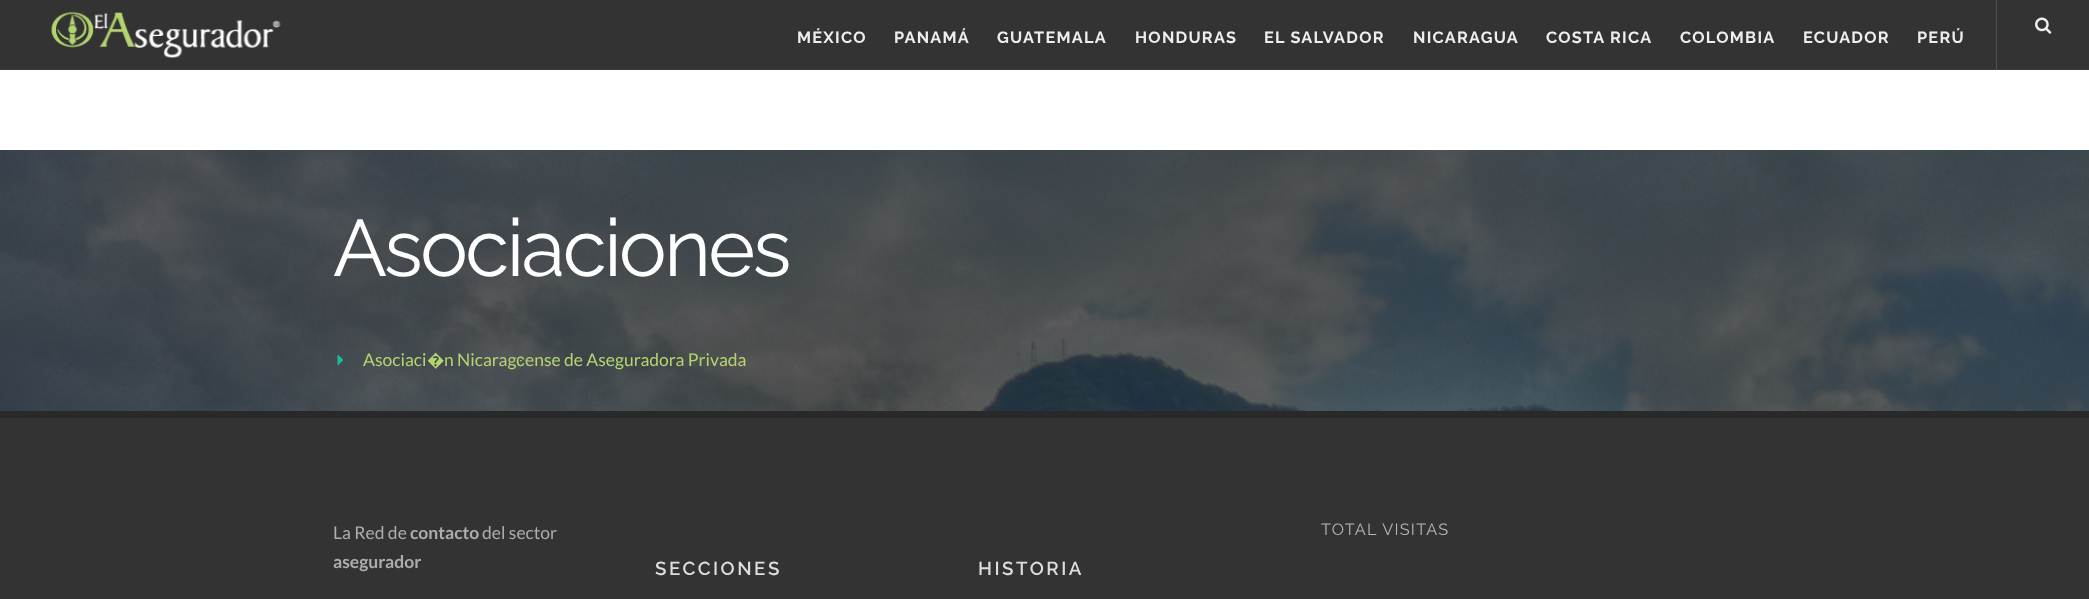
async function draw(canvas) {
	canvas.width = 2089;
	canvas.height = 599;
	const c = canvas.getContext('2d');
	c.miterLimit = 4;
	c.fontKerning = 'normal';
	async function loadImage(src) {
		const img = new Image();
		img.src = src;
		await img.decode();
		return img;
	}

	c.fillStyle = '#fff';
	c.fillRect(0, 0, 2089, 599);
	for (const [x, y, w, h, color] of [
		[0, 0, 2089, 69, '#333'],
		[1996, 0, 1, 70, '#525252'],
		[0, 69, 2089, 1, '#3d3d3d'],
		[1996, 69, 1, 1, '#5a5a5a'],
	]) {
		c.fillStyle = color;
		c.fillRect(x, y, w, h);
	}
	c.drawImage(await loadImage('img1.png'), 51, 11, 230, 47);
	c.drawImage(await loadImage('img2.png'), 2035, 17, 17, 17);
	c.letterSpacing = '1.25px';
	c.font = 'bold 16.25px Raleway';
	c.fillStyle = '#eee';
	for (const [text, x, y] of [
		['MÉXICO', 797, 43],
		['PANAMÁ', 894, 43],
		['GUATEMALA', 997, 43],
		['HONDURAS', 1135, 43],
		['EL SALVADOR', 1264, 43],
		['NICARAGUA', 1413, 43],
		['COSTA RICA', 1546, 43],
		['COLOMBIA', 1680, 43],
		['ECUADOR', 1803, 43],
		['PERÚ', 1917, 43],
	]) {
		c.fillText(text, x, y);
	}
	c.drawImage(await loadImage('img3.png'), 0, 150, 2089, 261);
	c.letterSpacing = '-2.5px';
	c.font = '80px Raleway';
	c.fillStyle = '#fff';
	c.fillText('Asociaciones', 333, 276);
	c.drawImage(await loadImage('img4.png'), 337, 355, 6, 10);
	c.letterSpacing = '0px';
	c.font = '17.5px Lato';
	c.fillStyle = '#b4d670';
	c.fillText('Asociaci', 363, 366);
	c.font = '17.5px Noto Sans';
	c.fillText('�', 427, 366);
	c.font = '17.5px Lato';
	c.fillText('n Nicarag', 444, 366);
	c.font = '17.5px Liberation Sans';
	c.fillText('ͼ', 516, 366);
	c.font = '17.5px Lato';
	c.fillText('ense de Aseguradora Privada', 525, 366);
	c.fillStyle = '#333';
	c.fillRect(0, 418, 2089, 181);
	c.fillStyle = '#292929';
	c.fillRect(0, 411, 2089, 7);
	c.fillStyle = '#adadad';
	c.fillText('La Red de', 333, 539);
	c.font = 'bold 17.5px Lato';
	c.fillText('contacto', 410, 539);
	c.font = '17.5px Lato';
	c.fillText('del sector', 482, 539);
	c.font = 'bold 17.5px Lato';
	c.fillText('asegurador', 333, 568);
	c.letterSpacing = '2.5px';
	c.font = '600 18.75px Raleway';
	c.fillStyle = '#ddd';
	c.fillText('SECCIONES', 655, 575);
	c.fillText('HISTORIA', 978, 575);
	c.letterSpacing = '1.25px';
	c.font = '16.25px Raleway';
	c.fillStyle = '#b6b6b6';
	c.fillText('TOTAL VISITAS', 1321, 535);
}

draw(document.querySelector('canvas'));
